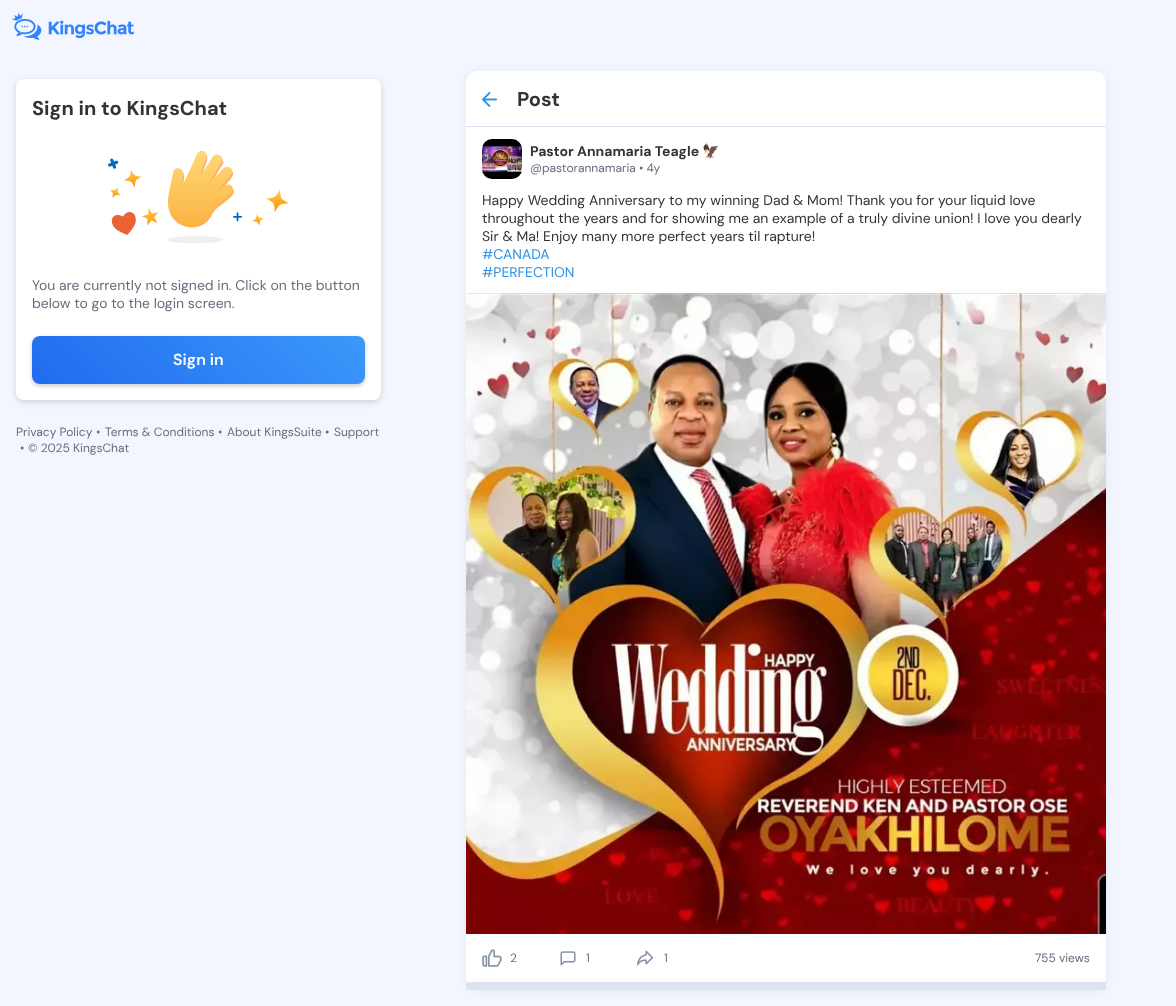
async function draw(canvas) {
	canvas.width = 1176;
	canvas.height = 1006;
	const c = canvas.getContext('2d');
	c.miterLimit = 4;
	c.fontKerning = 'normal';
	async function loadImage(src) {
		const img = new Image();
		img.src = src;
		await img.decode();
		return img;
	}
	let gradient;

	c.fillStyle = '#f3f6fe';
	c.fillRect(0, 0, 1176, 1006);
	c.drawImage(await loadImage('img1.png'), 12, 13, 123, 27);
	c.fillStyle = '#00000026';
	c.filter = 'blur(3px)';
	c.beginPath();
	c.roundRect(16, 81, 365, 321, 8);
	c.fill();
	c.filter = 'none';
	c.fillStyle = '#fff';
	c.beginPath();
	c.roundRect(16, 79, 365, 321, 8);
	c.fill();
	c.font = 'bold 20px DM Sans';
	c.fillStyle = '#323338';
	c.fillText('Sign in to KingsChat', 32, 115);
	c.drawImage(await loadImage('img2.png'), 108, 150, 181, 93);
	c.font = '14px DM Sans';
	c.fillStyle = '#676d7e';
	c.fillText('You are currently not signed in. Click on the button', 32, 290);
	c.fillText('below to go to the login screen.', 32, 308);
	c.fillStyle = '#00000033';
	c.filter = 'blur(2px)';
	c.beginPath();
	c.roundRect(32, 338, 333, 48, 8);
	c.fill();
	c.filter = 'none';
	gradient = c.createLinearGradient(145, 497, 419, 223);
	gradient.addColorStop(0, '#206bef');
	gradient.addColorStop(1, '#49acff');
	c.fillStyle = gradient;
	c.beginPath();
	c.roundRect(32, 336, 333, 48, 8);
	c.fill();
	c.font = '600 16px DM Sans';
	c.fillStyle = '#fff';
	c.fillText('Sign in', 173, 365);
	c.font = '12px DM Sans';
	c.fillStyle = '#676d7e';
	for (const [text, x, y] of [
		['Privacy Policy', 16, 436],
		['•', 96, 436],
		['Terms & Conditions', 105, 436],
		['•', 218, 436],
		['About KingsSuite', 227, 436],
		['•', 325, 436],
		['Support', 334, 436],
		['•', 20, 452],
		['© 2025 KingsChat', 28, 452],
	]) {
		c.fillText(text, x, y);
	}
	c.fillStyle = '#393d4614';
	c.filter = 'blur(4px)';
	c.beginPath();
	c.roundRect(466, 72, 640, 919, 12);
	c.fill();
	c.filter = 'none';
	c.fillStyle = '#fff';
	c.beginPath();
	c.roundRect(466, 71, 640, 919, 12);
	c.fill();
	c.fillStyle = '#dde3f0';
	c.fillRect(466, 126, 640, 1);
	c.drawImage(await loadImage('img3.png'), 482, 92, 15, 15);
	c.font = 'bold 20px DM Sans';
	c.fillStyle = '#323338';
	c.fillText('Post', 517, 106);
	c.fillStyle = '#dde3f0';
	c.fillRect(466, 982, 640, 8);
	c.drawImage(await loadImage('img4.png'), 482, 139, 40, 40);
	c.font = 'bold 14px DM Sans';
	c.fillStyle = '#323338';
	c.fillText('Pastor Annamaria Teagle', 530, 156);
	c.font = 'bold 14px Noto Color Emoji';
	c.fillText('🦅', 702, 156);
	c.font = '12px DM Sans';
	c.fillStyle = '#676d7e';
	c.fillText('@pastorannamaria • 4y', 530, 172);
	c.font = '14px DM Sans';
	c.fillStyle = '#323338';
	for (const [text, x, y] of [
		['Happy Wedding Anniversary to my winning Dad & Mom! Thank you for your liquid love', 482, 205],
		['throughout the years and for showing me an example of a truly divine union! I love you dearly', 482, 223],
		['Sir & Ma! Enjoy many more perfect years til rapture!', 482, 241],
	]) {
		c.fillText(text, x, y);
	}
	c.fillStyle = '#2f92e5';
	c.fillText('#CANADA', 482, 259);
	c.fillText('#PERFECTION', 482, 277);
	c.drawImage(await loadImage('img5.png'), 466, 293, 640, 3);
	c.drawImage(await loadImage('img6.png'), 466, 293, 640, 641);
	c.drawImage(await loadImage('img7.png'), 482, 949, 20, 18);
	c.font = '12px DM Sans';
	c.fillStyle = '#676d7e';
	c.fillText('2', 510, 962);
	c.drawImage(await loadImage('img8.png'), 560, 951, 16, 15);
	c.fillText('1', 586, 962);
	c.drawImage(await loadImage('img9.png'), 636, 950, 18, 16);
	c.fillText('1', 664, 962);
	c.fillText('755 views', 1035, 962);
}

draw(document.querySelector('canvas'));
